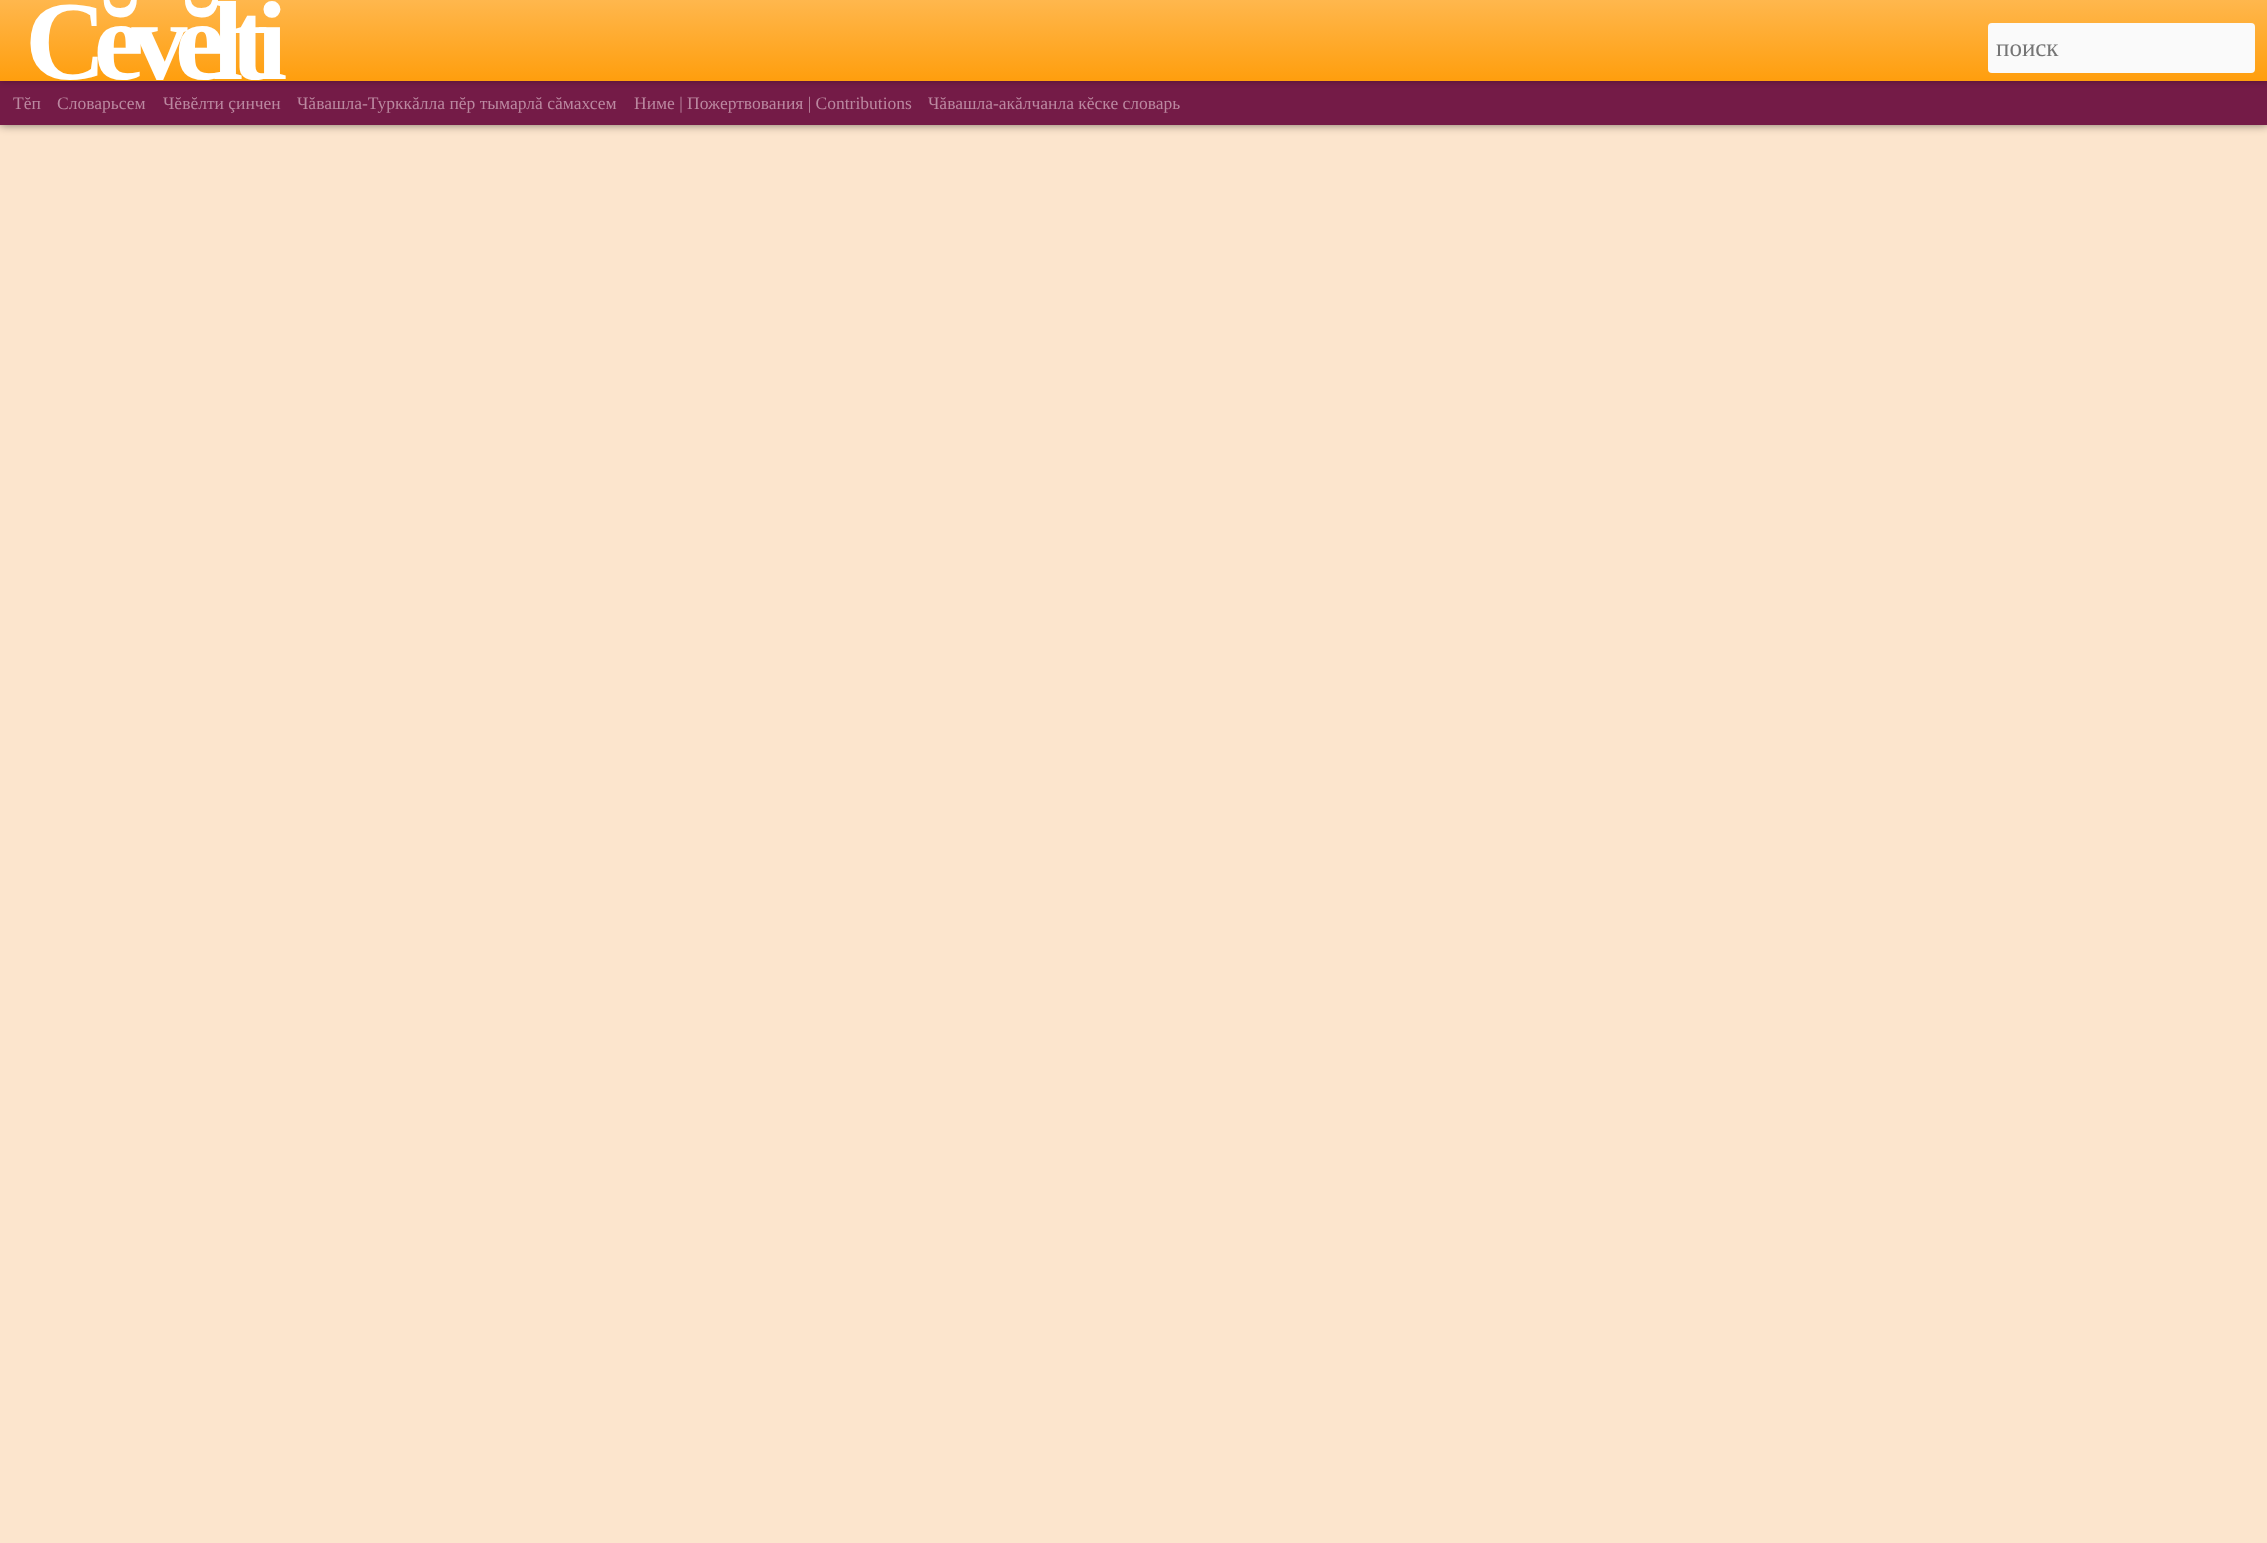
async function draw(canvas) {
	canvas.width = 2267;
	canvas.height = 1543;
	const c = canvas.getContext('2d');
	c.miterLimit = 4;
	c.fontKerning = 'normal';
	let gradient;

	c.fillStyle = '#fce5cd';
	c.fillRect(0, 0, 2267, 1543);
	c.fillStyle = '#00000080';
	c.filter = 'blur(5px)';
	c.beginPath();
	c.rect(0, 81, 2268, 44);
	c.fill();
	c.filter = 'none';
	c.fillStyle = '#741b47';
	c.fillRect(0, 81, 2267, 44);
	c.fillStyle = '#0000004d';
	c.filter = 'blur(3px)';
	c.beginPath();
	c.rect(0, 0, 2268, 81);
	c.fill();
	c.filter = 'none';
	gradient = c.createLinearGradient(0, 0, 0, 81);
	gradient.addColorStop(0, '#ffb74d');
	gradient.addColorStop(1, '#ff9e0d');
	c.fillStyle = gradient;
	c.fillRect(0, 0, 2267, 81);
	c.letterSpacing = '-12.5px';
	c.font = 'bold 112.5px Liberation Serif';
	c.fillStyle = '#fff';
	c.fillText('Cĕvĕlti', 25, 79);
	c.fillStyle = '#fafafa';
	c.beginPath();
	c.roundRect(1988, 23, 267, 50, 4);
	c.fill();
	c.letterSpacing = '0px';
	c.font = '25px Liberation Serif';
	c.fillStyle = '#757575';
	c.fillText('поиск', 1996, 56);
	c.font = '17.5px Liberation Serif';
	c.fillStyle = '#bb88a0';
	for (const [text, x, y] of [
		['Тĕп', 13, 109],
		['Словарьсем', 57, 109],
		['Чĕвĕлти çинчен', 163, 109],
		['Чăвашла-Турккăлла пĕр тымарлă сăмахсем', 297, 109],
		['Ниме | Пожертвования | Contributions', 634, 109],
		['Чăвашла-акăлчанла кĕске словарь', 928, 109],
	]) {
		c.fillText(text, x, y);
	}
}

draw(document.querySelector('canvas'));
